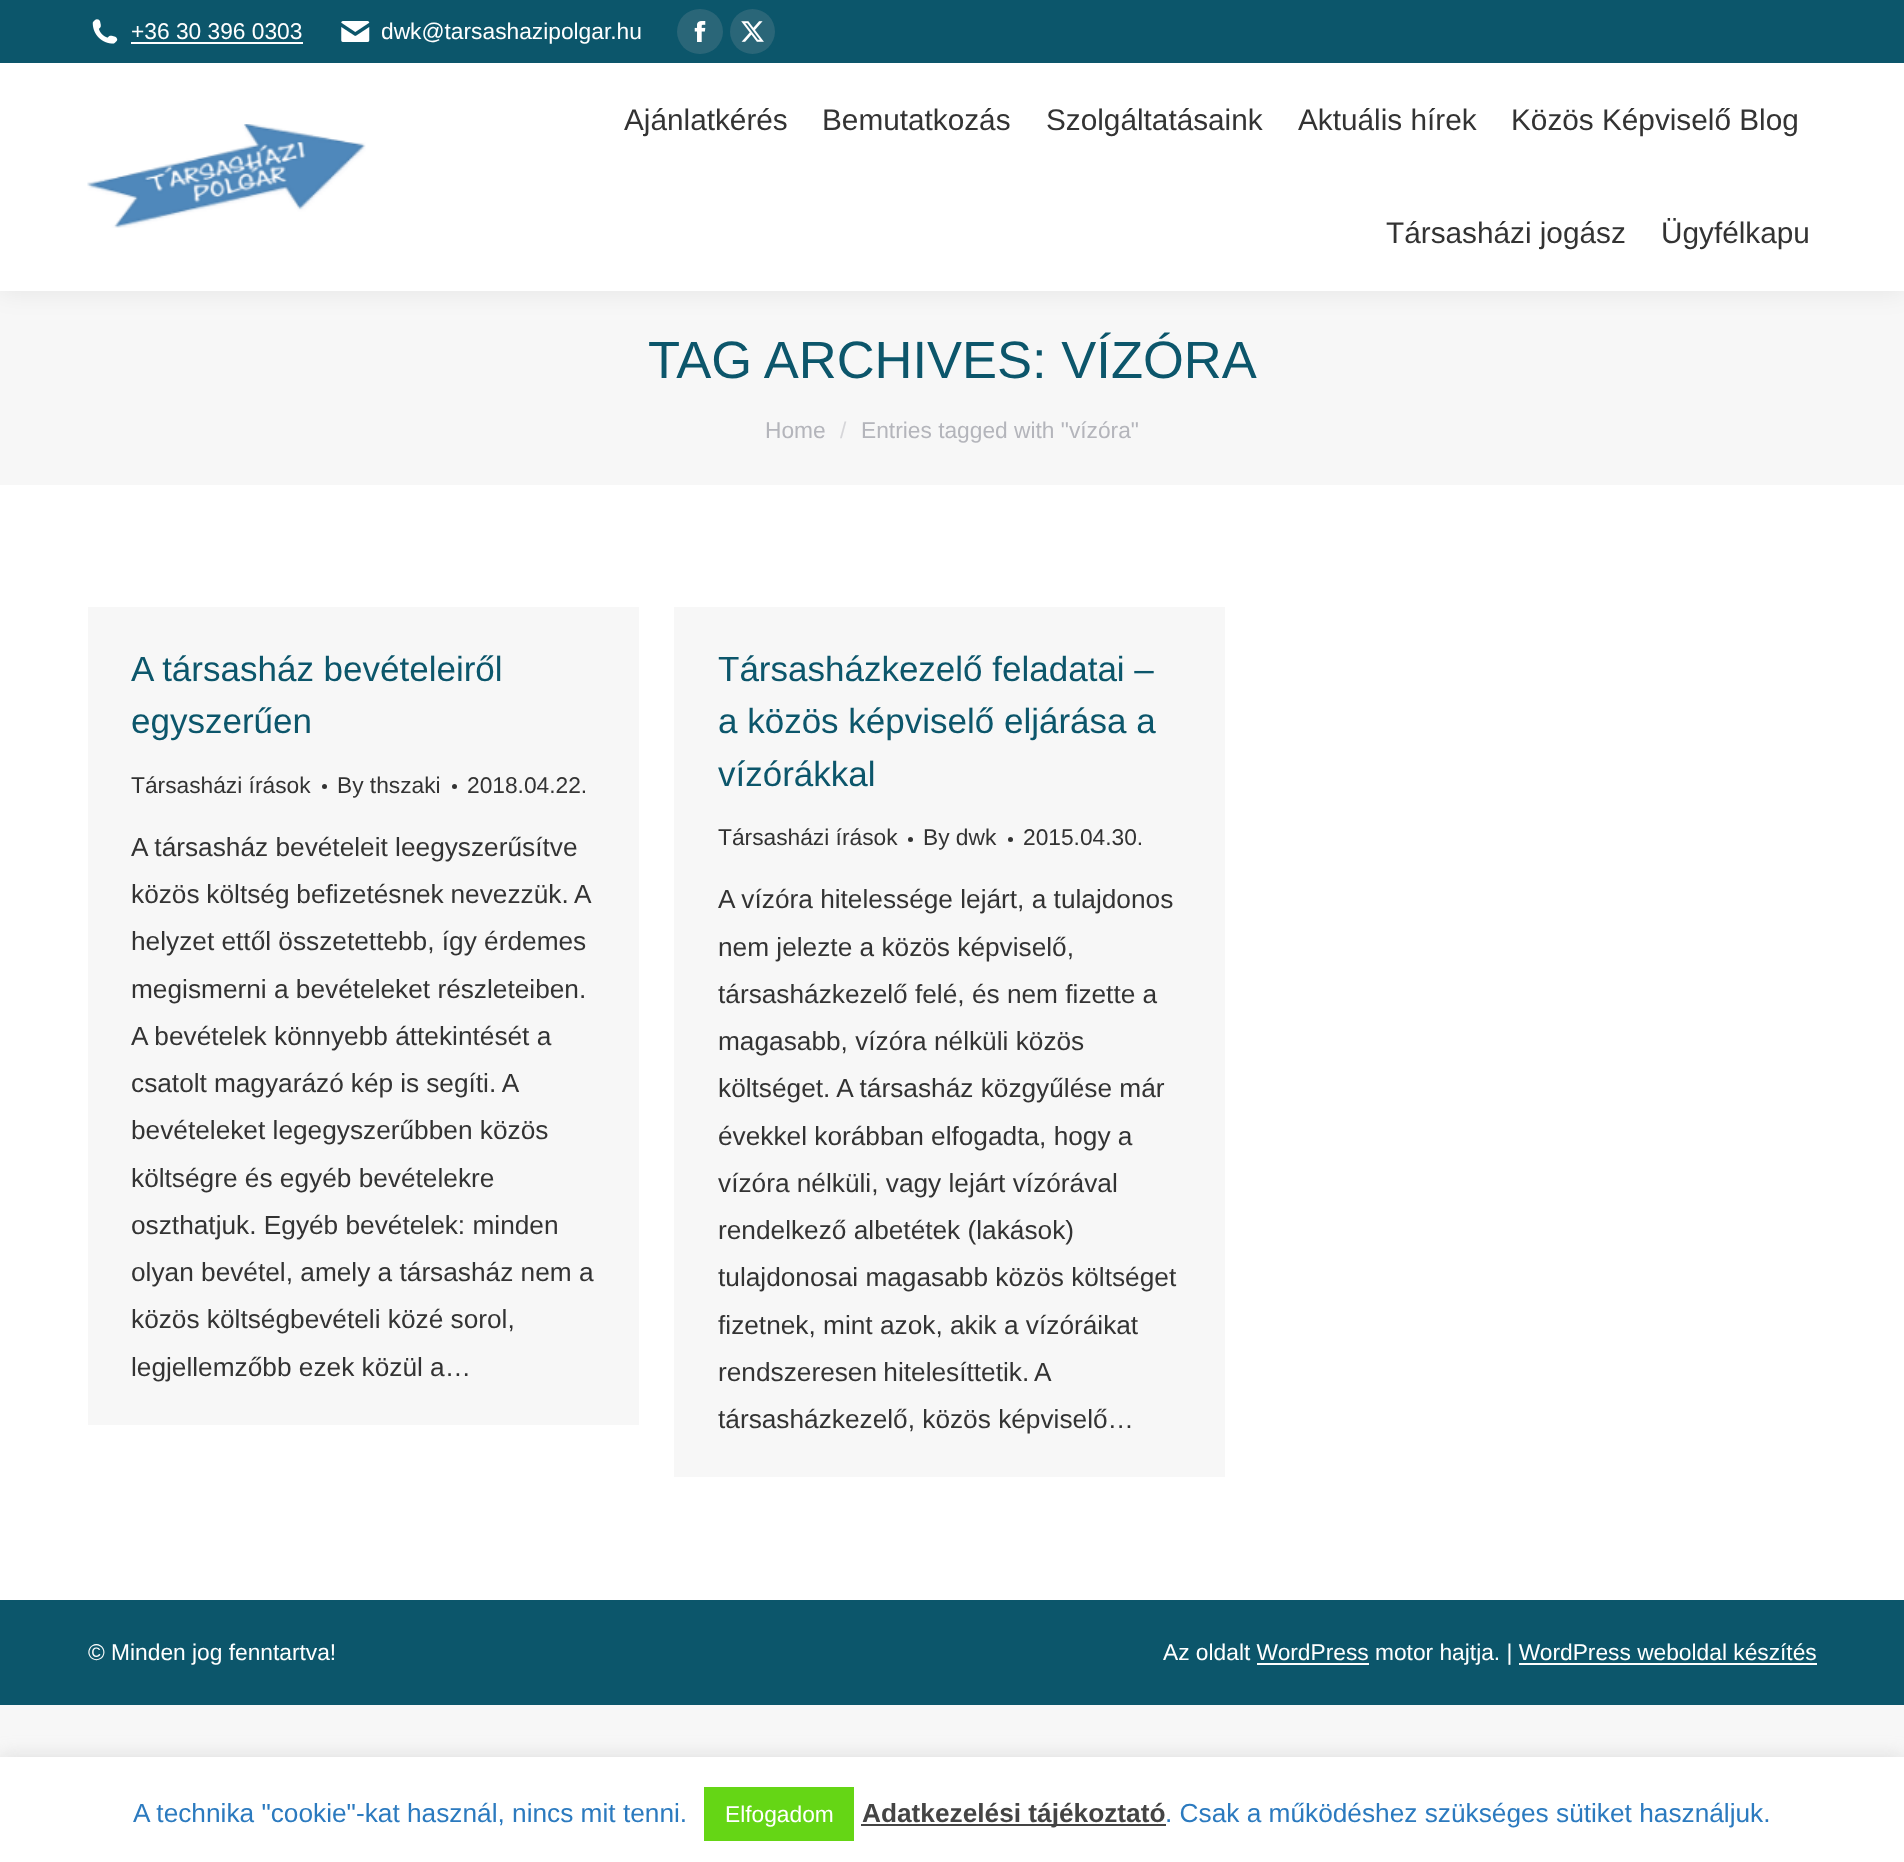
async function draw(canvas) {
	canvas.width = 1904;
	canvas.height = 1862;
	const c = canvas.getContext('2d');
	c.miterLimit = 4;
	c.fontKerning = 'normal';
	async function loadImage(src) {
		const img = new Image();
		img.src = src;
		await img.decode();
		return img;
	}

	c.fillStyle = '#f7f7f7';
	c.fillRect(0, 0, 1904, 1862);
	c.fillStyle = '#fff';
	c.fillRect(0, 485, 1904, 1115);
	c.fillStyle = '#00000012';
	c.filter = 'blur(13px)';
	c.beginPath();
	c.rect(-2, -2, 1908, 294);
	c.fill();
	c.filter = 'none';
	c.fillStyle = '#fff';
	c.fillRect(0, 63, 1904, 228);
	c.fillStyle = '#0c566b';
	c.fillRect(0, 0, 1904, 63);
	c.drawImage(await loadImage('img1.png'), 92, 19, 26, 25);
	c.font = '22.75px Liberation Sans';
	c.fillStyle = '#fff';
	c.fillText('+36 30 396 0303', 131, 39);
	c.fillRect(131, 42, 172, 2);
	c.drawImage(await loadImage('img2.png'), 341, 21, 29, 21);
	c.fillText('dwk@tarsashazipolgar.hu', 381, 39);
	c.fillStyle = '#2a6678';
	c.beginPath();
	c.roundRect(677, 9, 46, 45, 22.5);
	c.fill();
	c.drawImage(await loadImage('img3.png'), 694, 21, 12, 21);
	c.beginPath();
	c.arc(752.5, 31.5, 22.5, 0, 2 * Math.PI);
	c.fill();
	c.drawImage(await loadImage('img4.png'), 741, 21, 23, 21);
	c.drawImage(await loadImage('img5.png'), 87, 124, 279, 104);
	c.font = '29.75px Liberation Sans';
	c.fillStyle = '#333';
	for (const [text, x, y] of [
		['Ajánlatkérés', 624, 130],
		['Bemutatkozás', 822, 130],
		['Szolgáltatásaink', 1046, 130],
		['Aktuális hírek', 1298, 130],
		['Közös Képviselő Blog', 1511, 130],
		['Társasházi jogász', 1386, 243],
		['Ügyfélkapu', 1661, 243],
	]) {
		c.fillText(text, x, y);
	}
	c.font = '52.5px Liberation Sans';
	c.fillStyle = '#0c566b';
	c.fillText('TAG ARCHIVES: VÍZÓRA', 648, 378);
	c.font = '22.75px Liberation Sans';
	c.fillStyle = '#b4b5bb';
	c.fillText('Home', 765, 438);
	c.fillStyle = '#d6d6d9';
	c.fillText('/', 840, 438);
	c.fillStyle = '#b4b5bb';
	c.fillText('Entries tagged with "vízóra"', 861, 438);
	c.fillStyle = '#f7f7f7';
	c.fillRect(88, 607, 551, 818);
	c.font = '35px Liberation Sans';
	c.fillStyle = '#0c566b';
	c.fillText('A társasház bevételeiről', 131, 681);
	c.fillText('egyszerűen', 131, 733);
	c.font = '22.75px Liberation Sans';
	c.fillStyle = '#333';
	c.fillText('Társasházi írások', 131, 793);
	c.beginPath();
	c.arc(324.5, 786.5, 2.5, 0, 2 * Math.PI);
	c.fill();
	c.fillText('By thszaki', 337, 793);
	c.beginPath();
	c.arc(454.5, 786.5, 2.5, 0, 2 * Math.PI);
	c.fill();
	c.fillText('2018.04.22.', 467, 793);
	c.font = '26.25px Liberation Sans';
	c.fillText('A társasház bevételeit leegyszerűsítve', 131, 856);
	c.wordSpacing = '-0.5px';
	c.fillText('közös költség befizetésnek nevezzük. A', 131, 903);
	c.wordSpacing = '0px';
	for (const [text, x, y] of [
		['helyzet ettől összetettebb, így érdemes', 131, 950],
		['megismerni a bevételeket részleteiben.', 131, 998],
		['A bevételek könnyebb áttekintését a', 131, 1045],
	]) {
		c.fillText(text, x, y);
	}
	c.wordSpacing = '-0.25px';
	c.fillText('csatolt magyarázó kép is segíti. A', 131, 1092);
	c.wordSpacing = '0px';
	for (const [text, x, y] of [
		['bevételeket legegyszerűbben közös', 131, 1139],
		['költségre és egyéb bevételekre', 131, 1187],
		['oszthatjuk. Egyéb bevételek: minden', 131, 1234],
		['olyan bevétel, amely a társasház nem a', 131, 1281],
		['közös költségbevételi közé sorol,', 131, 1328],
		['legjellemzőbb ezek közül a…', 131, 1376],
	]) {
		c.fillText(text, x, y);
	}
	c.fillStyle = '#f7f7f7';
	c.fillRect(674, 607, 551, 870);
	c.font = '35px Liberation Sans';
	c.fillStyle = '#0c566b';
	for (const [text, x, y] of [
		['Társasházkezelő feladatai –', 718, 681],
		['a közös képviselő eljárása a', 718, 733],
		['vízórákkal', 718, 786],
	]) {
		c.fillText(text, x, y);
	}
	c.font = '22.75px Liberation Sans';
	c.fillStyle = '#333';
	c.fillText('Társasházi írások', 718, 845);
	c.beginPath();
	c.arc(910.5, 839.5, 2.5, 0, 2 * Math.PI);
	c.fill();
	c.fillText('By dwk', 923, 845);
	c.beginPath();
	c.arc(1010.5, 839.5, 2.5, 0, 2 * Math.PI);
	c.fill();
	c.fillText('2015.04.30.', 1023, 845);
	c.font = '26.25px Liberation Sans';
	for (const [text, x, y] of [
		['A vízóra hitelessége lejárt, a tulajdonos', 718, 908],
		['nem jelezte a közös képviselő,', 718, 956],
		['társasházkezelő felé, és nem fizette a', 718, 1003],
		['magasabb, vízóra nélküli közös', 718, 1050],
		['költséget. A társasház közgyűlése már', 718, 1097],
		['évekkel korábban elfogadta, hogy a', 718, 1145],
		['vízóra nélküli, vagy lejárt vízórával', 718, 1192],
		['rendelkező albetétek (lakások)', 718, 1239],
		['tulajdonosai magasabb közös költséget', 718, 1286],
		['fizetnek, mint azok, akik a vízóráikat', 718, 1334],
	]) {
		c.fillText(text, x, y);
	}
	c.wordSpacing = '-1px';
	c.fillText('rendszeresen hitelesíttetik. A', 718, 1381);
	c.wordSpacing = '0px';
	c.fillText('társasházkezelő, közös képviselő…', 718, 1428);
	c.fillStyle = '#0c566b';
	c.fillRect(0, 1600, 1904, 105);
	c.font = '22.75px Liberation Sans';
	c.fillStyle = '#fff';
	c.fillText('© Minden jog fenntartva!', 88, 1660);
	c.fillText('Az oldalt WordPress motor hajtja. | WordPress weboldal készítés', 1163, 1660);
	c.fillRect(1257, 1663, 112, 2);
	c.fillRect(1519, 1663, 298, 2);
	c.fillStyle = '#acabab4d';
	c.filter = 'blur(9px)';
	c.beginPath();
	c.rect(0, 1755, 1904, 105);
	c.fill();
	c.filter = 'none';
	c.fillStyle = '#fff';
	c.fillRect(0, 1757, 1904, 105);
	c.font = '26.25px Liberation Sans';
	c.fillStyle = '#2b7abf';
	c.fillText('A technika "cookie"-kat használ, nincs mit tenni.', 133, 1822);
	c.fillStyle = '#65d615';
	c.fillRect(704, 1787, 150, 54);
	c.font = '22.75px Liberation Sans';
	c.fillStyle = '#fff';
	c.fillText('Elfogadom', 725, 1822);
	c.fillStyle = '#444';
	c.fillRect(861, 1824, 305, 2);
	c.font = 'bold 26.25px Liberation Sans';
	c.fillText('Adatkezelési tájékoztató', 862, 1822);
	c.font = '26.25px Liberation Sans';
	c.fillStyle = '#2b7abf';
	c.fillText('. Csak a működéshez szükséges sütiket használjuk.', 1165, 1822);
}

draw(document.querySelector('canvas'));
